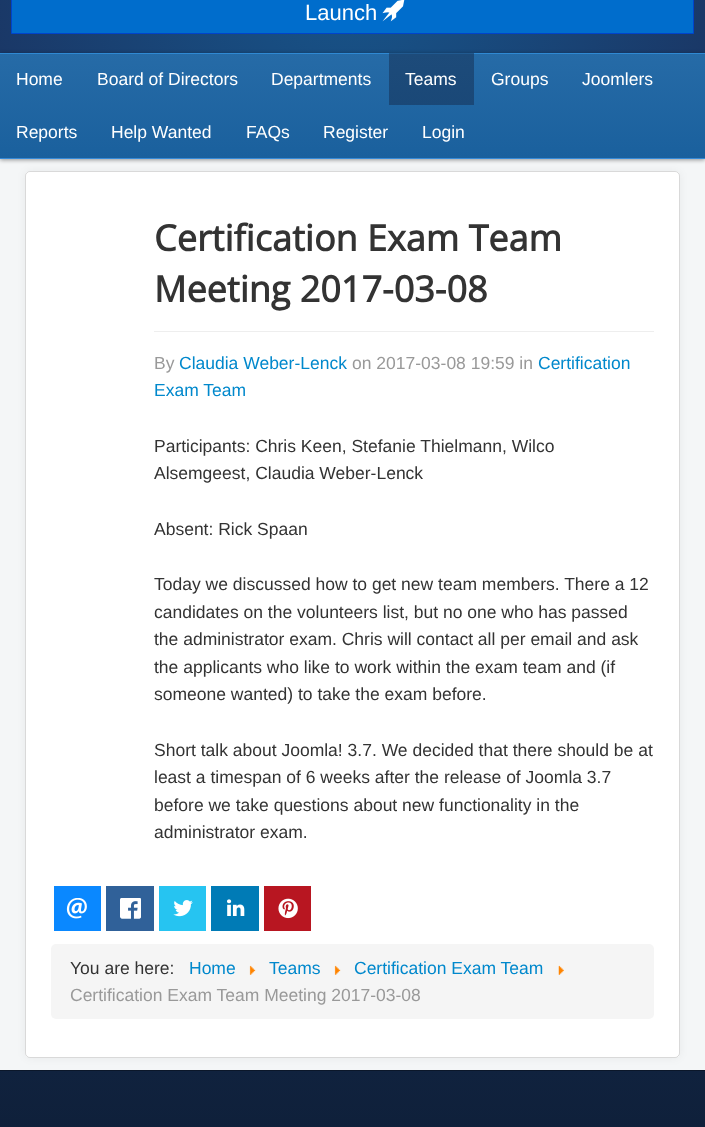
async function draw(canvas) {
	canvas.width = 705;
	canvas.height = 1127;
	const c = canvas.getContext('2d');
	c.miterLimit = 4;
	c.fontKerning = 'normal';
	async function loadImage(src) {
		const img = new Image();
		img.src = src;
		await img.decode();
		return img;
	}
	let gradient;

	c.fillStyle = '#f4f6f7';
	c.fillRect(0, 0, 705, 1127);
	gradient = c.createRadialGradient(353, -42, 0, 353, -42, 365);
	gradient.addColorStop(0, '#17568c');
	gradient.addColorStop(1, '#1a3867');
	c.fillStyle = gradient;
	c.fillRect(0, 0, 705, 53);
	c.fillStyle = '#006dcc';
	c.beginPath();
	c.rect(11.5, -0.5, 682, 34);
	c.fill();
	c.strokeStyle = '#04c';
	c.stroke();
	c.font = '22px Liberation Sans';
	c.fillStyle = '#fff';
	c.fillText('Launch', 305, 20);
	c.drawImage(await loadImage('img1.png'), 382, 0, 23, 22);
	c.fillStyle = '#00000033';
	c.filter = 'blur(0.5px)';
	c.beginPath();
	c.rect(0, 53, 705, 106);
	c.fill();
	c.filter = 'none';
	c.fillStyle = '#00000066';
	c.filter = 'blur(2px)';
	c.beginPath();
	c.rect(0, 54, 705, 106);
	c.fill();
	c.filter = 'none';
	gradient = c.createLinearGradient(353, 159, 353, 53);
	gradient.addColorStop(0, '#1a609d');
	gradient.addColorStop(1, '#266ba7');
	c.fillStyle = gradient;
	c.fillRect(0, 54, 705, 104);
	gradient = c.createLinearGradient(353, 159, 353, 53);
	gradient.addColorStop(0, '#174575');
	gradient.addColorStop(1, '#1d4b7a');
	c.fillStyle = gradient;
	c.fillRect(389, 54, 85, 51);
	c.fillStyle = '#0000000d';
	c.filter = 'blur(4px)';
	c.beginPath();
	c.roundRect(25, 171, 655, 887, 5);
	c.fill();
	c.filter = 'none';
	for (const [x, y, w, h, color] of [
		[0, 158, 705, 1, '#368ad8'],
		[0, 53, 705, 1, '#2f89d3'],
		[389, 53, 85, 1, '#215a90'],
	]) {
		c.fillStyle = color;
		c.fillRect(x, y, w, h);
	}
	c.font = '17.5px Liberation Sans';
	c.fillStyle = '#fff';
	for (const [text, x, y] of [
		['Home', 16, 85],
		['Board of Directors', 97, 85],
		['Departments', 271, 85],
		['Teams', 405, 85],
		['Groups', 491, 85],
		['Joomlers', 582, 85],
		['Reports', 16, 138],
		['Help Wanted', 111, 138],
		['FAQs', 246, 138],
		['Register', 323, 138],
		['Login', 422, 138],
	]) {
		c.fillText(text, x, y);
	}
	c.beginPath();
	c.roundRect(25, 171, 655, 887, 5);
	c.fill();
	c.beginPath();
	c.roundRect(25.5, 171.5, 654, 886, 4.5);
	c.strokeStyle = '#00000026';
	c.stroke();
	c.fillStyle = '#eee';
	c.fillRect(154, 331, 500, 1);
	c.font = 'bold 36px Open Sans';
	c.fillStyle = '#333';
	c.fillText('Certification Exam Team', 154, 251);
	c.fillText('Meeting 2017-03-08', 154, 302);
	c.font = '17.5px Liberation Sans';
	c.fillStyle = '#999';
	c.fillText('By', 154, 369);
	c.fillStyle = '#08c';
	c.fillText('Claudia Weber-Lenck', 179, 369);
	c.fillStyle = '#999';
	c.fillText('on 2017-03-08 19:59 in', 352, 369);
	c.fillStyle = '#08c';
	c.fillText('Certification', 538, 369);
	c.fillText('Exam Team', 154, 396);
	c.fillStyle = '#333';
	for (const [text, x, y] of [
		['Participants: Chris Keen, Stefanie Thielmann, Wilco', 154, 452],
		['Alsemgeest, Claudia Weber-Lenck', 154, 479],
		['Absent: Rick Spaan', 154, 535],
		['Today we discussed how to get new team members. There a 12', 154, 590],
		['candidates on the volunteers list, but no one who has passed', 154, 618],
		['the administrator exam. Chris will contact all per email and ask', 154, 645],
		['the applicants who like to work within the exam team and (if', 154, 673],
		['someone wanted) to take the exam before.', 154, 700],
		['Short talk about Joomla! 3.7. We decided that there should be at', 154, 756],
		['least a timespan of 6 weeks after the release of Joomla 3.7', 154, 783],
		['before we take questions about new functionality in the', 154, 811],
		['administrator exam.', 154, 838],
	]) {
		c.fillText(text, x, y);
	}
	c.fillStyle = '#0a88ff';
	c.fillRect(54, 886, 47, 45);
	c.drawImage(await loadImage('img2.png'), 66, 898, 21, 21);
	c.fillStyle = '#306199';
	c.fillRect(106, 886, 48, 45);
	c.drawImage(await loadImage('img3.png'), 120, 898, 21, 21);
	c.fillStyle = '#26c4f1';
	c.fillRect(159, 886, 47, 45);
	c.drawImage(await loadImage('img4.png'), 173, 900, 20, 17);
	c.fillStyle = '#007bb6';
	c.fillRect(211, 886, 48, 45);
	c.drawImage(await loadImage('img5.png'), 227, 899, 18, 17);
	c.fillStyle = '#b81621';
	c.fillRect(264, 886, 47, 45);
	c.drawImage(await loadImage('img6.png'), 278, 898, 20, 21);
	c.fillStyle = '#f5f5f5';
	c.beginPath();
	c.roundRect(51, 944, 603, 75, 5);
	c.fill();
	c.fillStyle = '#333';
	c.fillText('You are here:', 70, 974);
	c.fillStyle = '#08c';
	c.fillText('Home', 189, 974);
	c.drawImage(await loadImage('img7.png'), 249, 965, 7, 10);
	c.fillText('Teams', 269, 974);
	c.drawImage(await loadImage('img7.png'), 334, 965, 7, 10);
	c.fillText('Certification Exam Team', 354, 974);
	c.drawImage(await loadImage('img8.png'), 558, 965, 6, 10);
	c.fillStyle = '#999';
	c.fillText('Certification Exam Team Meeting 2017-03-08', 70, 1001);
	gradient = c.createLinearGradient(353, 1071, 353, 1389);
	gradient.addColorStop(0, '#10223e');
	gradient.addColorStop(1, '#0b172a');
	c.fillStyle = gradient;
	c.fillRect(0, 1071, 705, 56);
	c.fillStyle = '#0b172a';
	c.fillRect(0, 1070, 705, 1);
}

draw(document.querySelector('canvas'));
